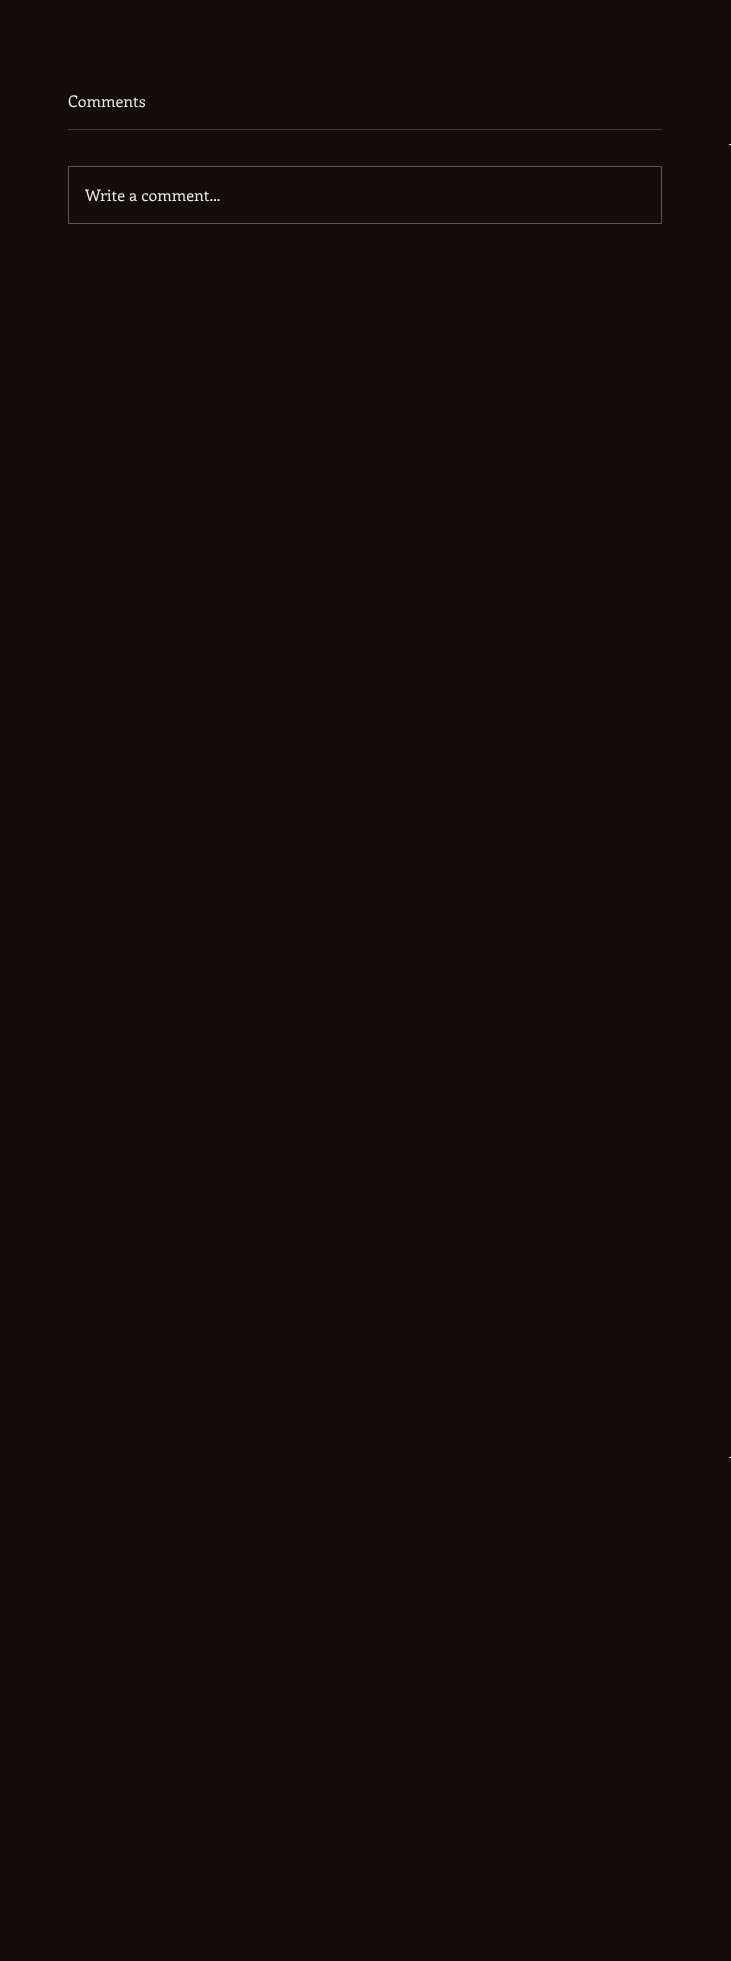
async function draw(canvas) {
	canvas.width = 731;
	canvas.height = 1961;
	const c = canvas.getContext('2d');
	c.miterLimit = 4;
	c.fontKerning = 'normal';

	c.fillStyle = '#140e0a';
	c.fillRect(0, 0, 731, 1961);
	c.font = '16px Enriqueta';
	c.fillStyle = '#ededed';
	c.fillText('Comments', 68, 107);
	c.fillStyle = '#3f3b37';
	c.fillRect(68, 129, 594, 1);
	c.strokeStyle = '#5b5654';
	c.strokeRect(68.5, 166.5, 593, 57);
	c.fillStyle = '#ededed';
	c.fillText('Write a comment...', 85, 201);
	c.beginPath();
	c.moveTo(729, 144.5);
	c.lineTo(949, 144.5);
	c.strokeStyle = '#ededed';
	c.setLineDash([3, 2.05]);
	c.stroke();
	c.beginPath();
	c.moveTo(729, 1457.5);
	c.lineTo(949, 1457.5);
	c.stroke();
}

draw(document.querySelector('canvas'));
